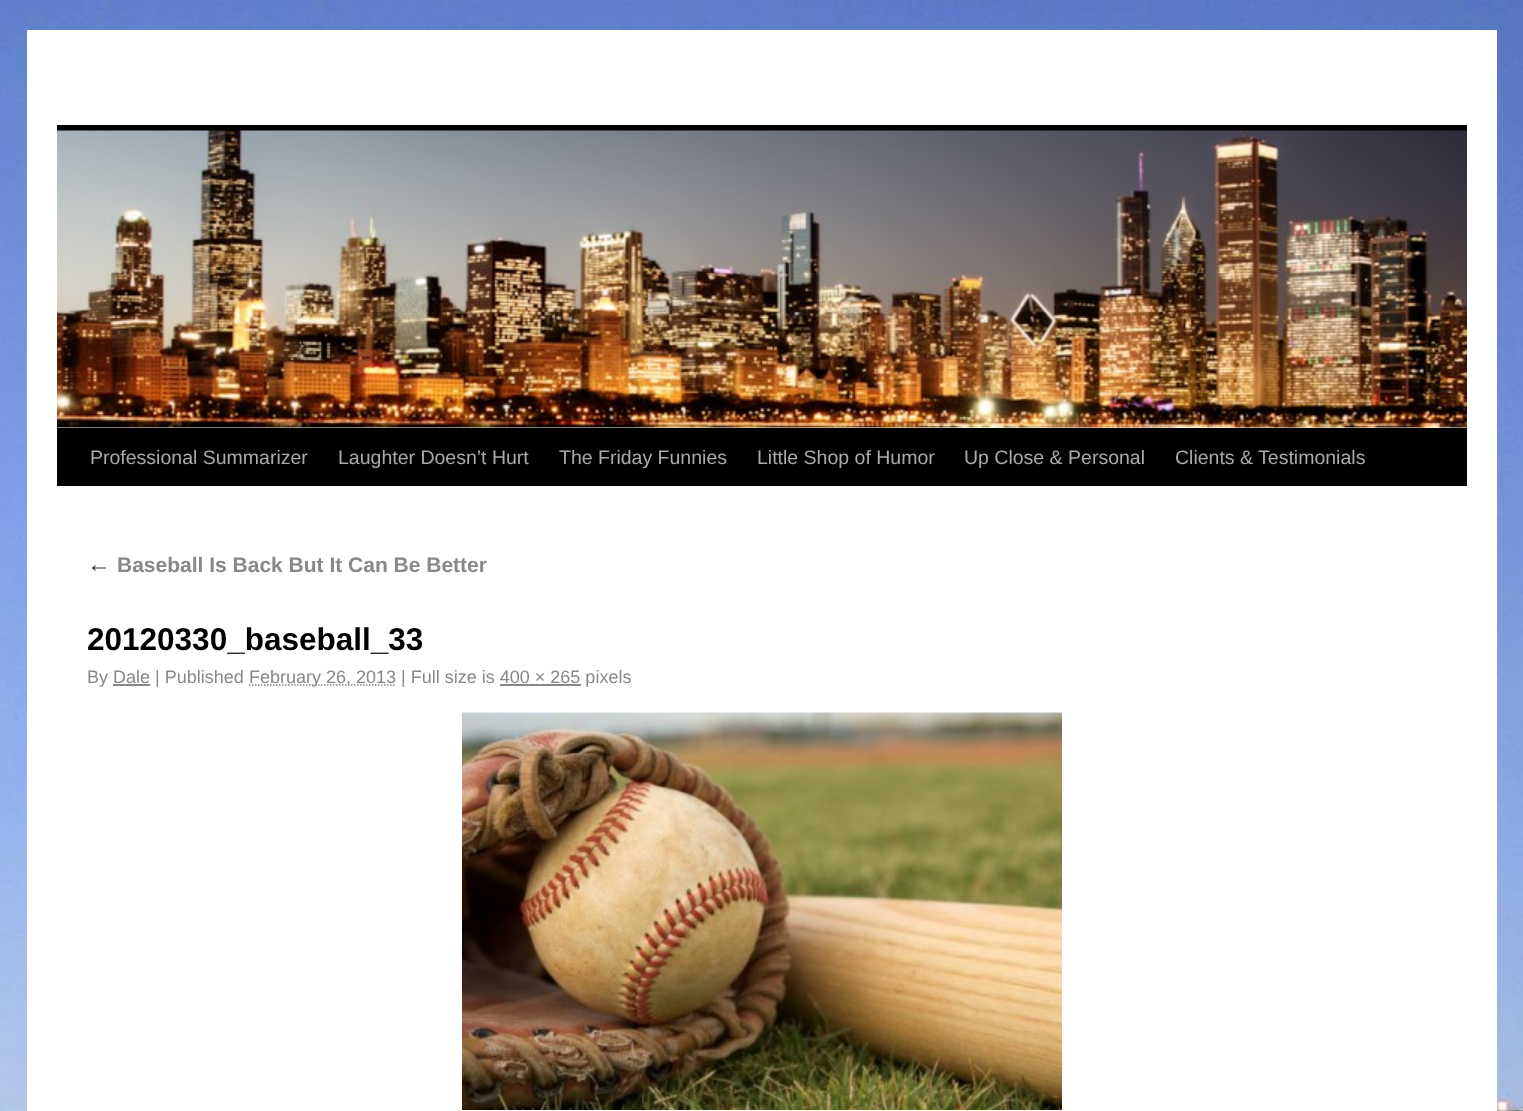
async function draw(canvas) {
	canvas.width = 1523;
	canvas.height = 1111;
	const c = canvas.getContext('2d');
	c.miterLimit = 4;
	c.fontKerning = 'normal';
	async function loadImage(src) {
		const img = new Image();
		img.src = src;
		await img.decode();
		return img;
	}

	c.fillStyle = '#fff';
	c.fillRect(0, 0, 1523, 1111);
	c.drawImage(await loadImage('img1.png'), 0, 0, 1523, 1111);
	for (const [x, y, w, h, color] of [
		[27, 30, 1470, 1081, '#fff'],
		[57, 125, 1410, 6, '#000'],
		[57, 428, 1410, 58, '#000'],
	]) {
		c.fillStyle = color;
		c.fillRect(x, y, w, h);
	}
	c.drawImage(await loadImage('img2.png'), 57, 130, 1410, 298);
	c.font = '19.5px Liberation Sans';
	c.fillStyle = '#aaa';
	for (const [text, x, y] of [
		['Professional Summarizer', 90, 464],
		['Laughter Doesn’t Hurt', 338, 464],
		['The Friday Funnies', 559, 464],
		['Little Shop of Humor', 757, 464],
		['Up Close & Personal', 964, 464],
		['Clients & Testimonials', 1175, 464],
	]) {
		c.fillText(text, x, y);
	}
	c.font = 'italic 24px Liberation Sans';
	c.fillStyle = '#333';
	c.fillText('←', 87, 572);
	c.font = 'bold 21px Liberation Sans';
	c.fillStyle = '#888';
	c.fillText('Baseball Is Back But It Can Be Better', 117, 572);
	c.font = 'bold 31.5px Liberation Sans';
	c.fillStyle = '#000';
	c.fillText('20120330_baseball_33', 87, 650);
	c.font = '18px Liberation Sans';
	c.fillStyle = '#888';
	c.fillText('By Dale | Published', 87, 683);
	c.beginPath();
	c.moveTo(249, 685);
	c.lineTo(396, 685);
	c.strokeStyle = '#888';
	c.lineWidth = 1.5;
	c.setLineDash([1.5, 1.5]);
	c.stroke();
	c.fillText('February 26, 2013 | Full size is 400 × 265 pixels', 249, 683);
	c.fillRect(113, 684, 37, 2);
	c.fillRect(500, 684, 81, 2);
	c.drawImage(await loadImage('img3.png'), 462, 712, 600, 398);
}

draw(document.querySelector('canvas'));
